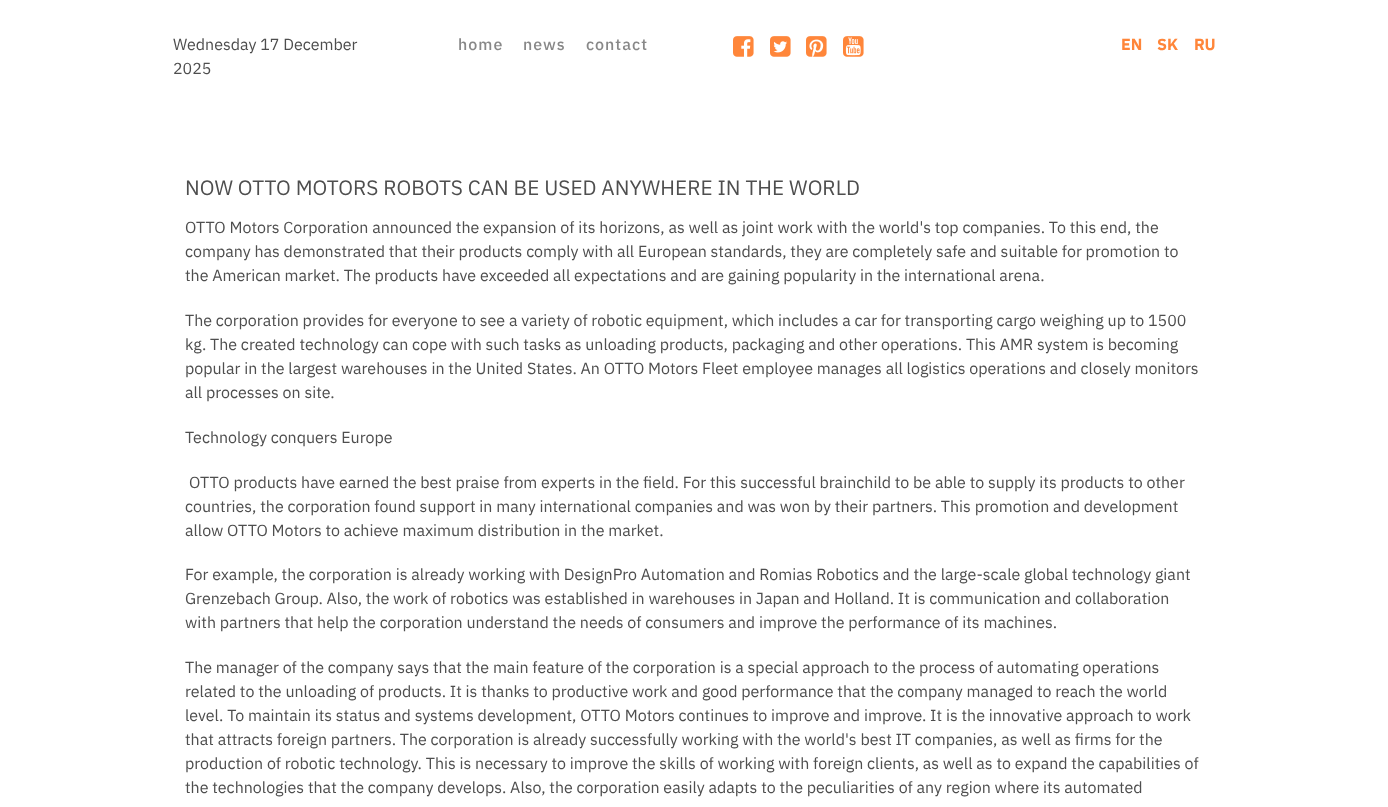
async function draw(canvas) {
	canvas.width = 1388;
	canvas.height = 807;
	const c = canvas.getContext('2d');
	c.miterLimit = 4;
	c.fontKerning = 'normal';
	async function loadImage(src) {
		const img = new Image();
		img.src = src;
		await img.decode();
		return img;
	}

	c.fillStyle = '#fff';
	c.fillRect(0, 0, 1388, 807);
	c.font = '16px IBM Plex Sans';
	c.fillStyle = '#4e4e4e';
	c.fillText('Wednesday 17 December', 173, 50);
	c.fillText('2025', 173, 74);
	c.letterSpacing = '1px';
	c.font = '500 16px IBM Plex Sans';
	c.fillStyle = '#888';
	for (const [text, x, y] of [
		['home', 458, 50],
		['news', 523, 50],
		['contact', 586, 50],
	]) {
		c.fillText(text, x, y);
	}
	c.drawImage(await loadImage('img1.png'), 733, 36, 21, 21);
	c.drawImage(await loadImage('img2.png'), 770, 36, 21, 21);
	c.drawImage(await loadImage('img3.png'), 806, 36, 21, 21);
	c.drawImage(await loadImage('img4.png'), 843, 36, 21, 21);
	c.letterSpacing = '0px';
	c.font = 'bold 16px IBM Plex Sans';
	c.fillStyle = '#ff863a';
	for (const [text, x, y] of [
		['EN', 1121, 50],
		['SK', 1157, 50],
		['RU', 1194, 50],
	]) {
		c.fillText(text, x, y);
	}
	c.font = '20.8px IBM Plex Sans';
	c.fillStyle = '#4e4e4e';
	c.fillText('NOW OTTO MOTORS ROBOTS CAN BE USED ANYWHERE IN THE WORLD', 185, 195);
	c.font = '16px IBM Plex Sans';
	for (const [text, x, y] of [
		['OTTO Motors Corporation announced the expansion of its horizons, as well as joint work with the world\'s top companies. To this end, the', 185, 233],
		['company has demonstrated that their products comply with all European standards, they are completely safe and suitable for promotion to', 185, 257],
		['the American market. The products have exceeded all expectations and are gaining popularity in the international arena.', 185, 281],
		['The corporation provides for everyone to see a variety of robotic equipment, which includes a car for transporting cargo weighing up to 1500', 185, 326],
		['kg. The created technology can cope with such tasks as unloading products, packaging and other operations. This AMR system is becoming', 185, 350],
		['popular in the largest warehouses in the United States. An OTTO Motors Fleet employee manages all logistics operations and closely monitors', 185, 374],
		['all processes on site.', 185, 398],
		['Technology conquers Europe', 185, 443],
		['OTTO products have earned the best praise from experts in the field. For this successful brainchild to be able to supply its products to other', 189, 488],
		['countries, the corporation found support in many international companies and was won by their partners. This promotion and development', 185, 512],
		['allow OTTO Motors to achieve maximum distribution in the market.', 185, 536],
		['For example, the corporation is already working with DesignPro Automation and Romias Robotics and the large-scale global technology giant', 185, 580],
		['Grenzebach Group. Also, the work of robotics was established in warehouses in Japan and Holland. It is communication and collaboration', 185, 604],
		['with partners that help the corporation understand the needs of consumers and improve the performance of its machines.', 185, 628],
		['The manager of the company says that the main feature of the corporation is a special approach to the process of automating operations', 185, 673],
		['related to the unloading of products. It is thanks to productive work and good performance that the company managed to reach the world', 185, 697],
		['level. To maintain its status and systems development, OTTO Motors continues to improve and improve. It is the innovative approach to work', 185, 721],
		['that attracts foreign partners. The corporation is already successfully working with the world\'s best IT companies, as well as firms for the', 185, 745],
		['production of robotic technology. This is necessary to improve the skills of working with foreign clients, as well as to expand the capabilities of', 185, 769],
		['the technologies that the company develops. Also, the corporation easily adapts to the peculiarities of any region where its automated', 185, 793],
	]) {
		c.fillText(text, x, y);
	}
}

draw(document.querySelector('canvas'));
